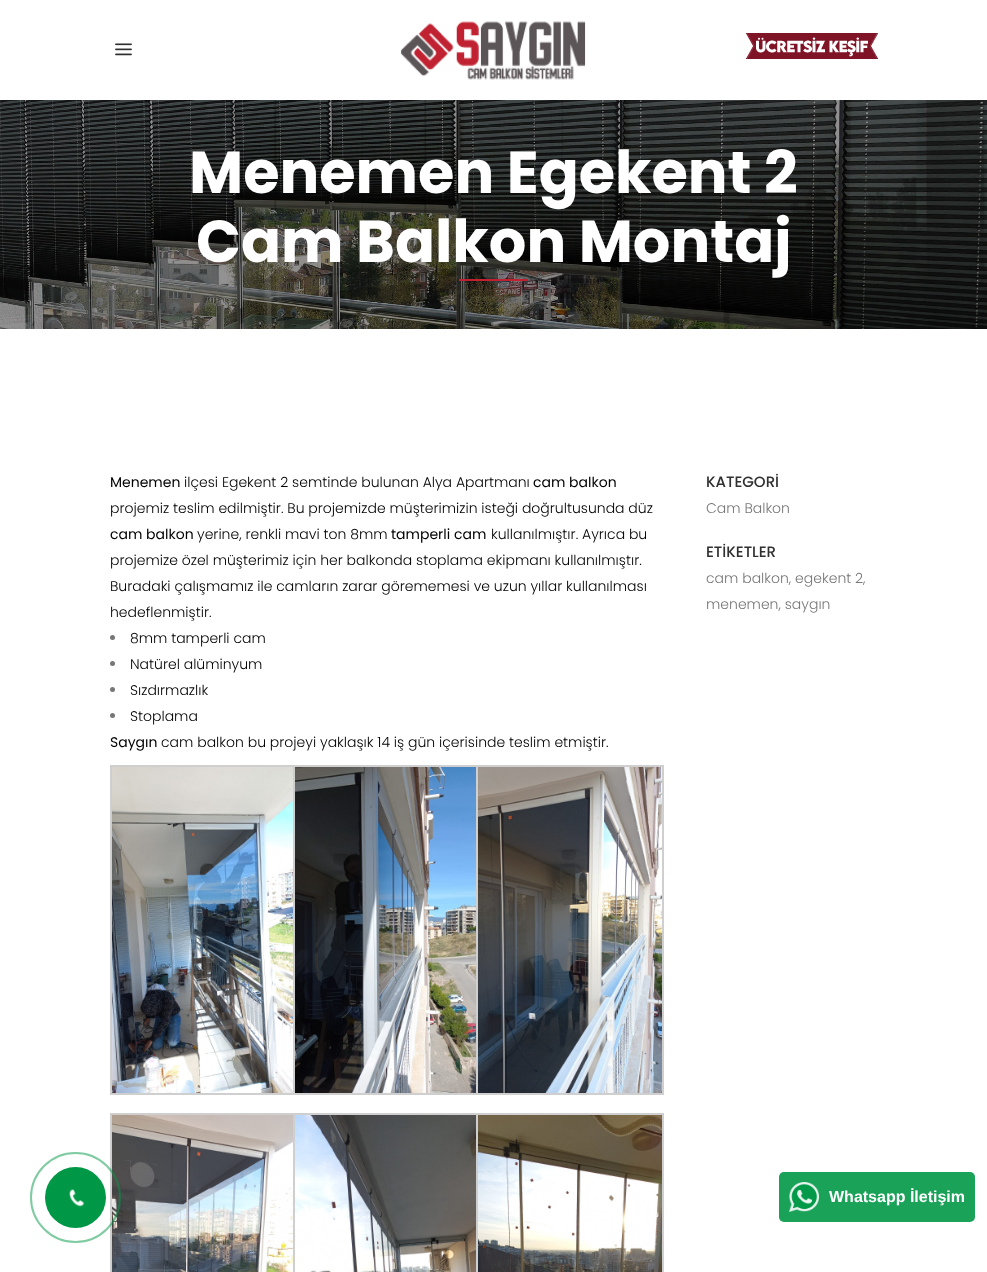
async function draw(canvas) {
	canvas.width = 987;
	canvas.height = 1272;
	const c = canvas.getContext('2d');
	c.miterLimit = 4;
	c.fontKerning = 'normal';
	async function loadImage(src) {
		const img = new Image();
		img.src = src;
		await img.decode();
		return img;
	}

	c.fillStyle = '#fff';
	c.fillRect(0, 0, 987, 1272);
	c.drawImage(await loadImage('img1.png'), 115, 43, 17, 13);
	c.drawImage(await loadImage('img2.png'), 400, 21, 186, 59);
	c.drawImage(await loadImage('img3.png'), 746, 33, 132, 26);
	c.drawImage(await loadImage('img4.png'), 0, 100, 987, 229);
	c.font = 'bold 59px Poppins';
	c.fillText('Menemen Egekent 2', 189, 193);
	c.fillText('Cam Balkon Montaj', 196, 262);
	c.fillStyle = '#bf2130';
	c.fillRect(459, 279, 69, 2);
	c.font = '14px Poppins';
	c.fillStyle = '#000';
	c.fillText('Menemen', 110, 487);
	c.font = '300 14px Poppins';
	c.fillText('ilçesi Egekent 2 semtinde bulunan Alya Apartmanı', 184, 487);
	c.font = '14px Poppins';
	c.fillText('cam balkon', 533, 487);
	c.font = '300 14px Poppins';
	c.fillText('projemiz teslim edilmiştir. Bu projemizde müşterimizin isteği doğrultusunda düz', 110, 513);
	c.font = '14px Poppins';
	c.fillText('cam balkon', 110, 539);
	c.font = '300 14px Poppins';
	c.fillText('yerine, renkli mavi ton 8mm', 197, 539);
	c.font = '14px Poppins';
	c.fillText('tamperli cam', 391, 539);
	c.font = '300 14px Poppins';
	for (const [text, x, y] of [
		['kullanılmıştır. Ayrıca bu', 491, 539],
		['projemize özel müşterimiz için her balkonda stoplama ekipmanı kullanılmıştır.', 110, 565],
		['Buradaki çalışmamız ile camların zarar görememesi ve uzun yıllar kullanılması', 110, 591],
		['hedeflenmiştir.', 110, 617],
	]) {
		c.fillText(text, x, y);
	}
	c.fillStyle = '#777';
	c.beginPath();
	c.arc(112.5, 637.5, 2.5, 0, 2 * Math.PI);
	c.fill();
	c.fillStyle = '#000';
	c.fillText('8mm tamperli cam', 130, 643);
	c.fillStyle = '#777';
	c.beginPath();
	c.arc(112.5, 663.5, 2.5, 0, 2 * Math.PI);
	c.fill();
	c.fillStyle = '#000';
	c.fillText('Natürel alüminyum', 130, 669);
	c.fillStyle = '#777';
	c.beginPath();
	c.arc(112.5, 689.5, 2.5, 0, 2 * Math.PI);
	c.fill();
	c.fillStyle = '#000';
	c.fillText('Sızdırmazlık', 130, 695);
	c.fillStyle = '#777';
	c.beginPath();
	c.arc(112.5, 715.5, 2.5, 0, 2 * Math.PI);
	c.fill();
	c.fillStyle = '#000';
	c.fillText('Stoplama', 130, 721);
	c.font = '14px Poppins';
	c.fillText('Saygın', 110, 747);
	c.font = '300 14px Poppins';
	c.fillText('cam balkon bu projeyi yaklaşık 14 iş gün içerisinde teslim etmiştir.', 161, 747);
	c.strokeStyle = '#cfcfcf';
	c.lineWidth = 2;
	c.strokeRect(111, 766, 185, 328);
	c.drawImage(await loadImage('img5.png'), 112, 767, 181, 326);
	c.strokeRect(294, 766, 185, 328);
	c.drawImage(await loadImage('img6.png'), 295, 767, 181, 326);
	c.strokeRect(477, 766, 186, 328);
	c.drawImage(await loadImage('img7.png'), 478, 767, 184, 326);
	c.strokeRect(111, 1114, 185, 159);
	c.drawImage(await loadImage('img8.png'), 112, 1115, 181, 157);
	c.strokeRect(294, 1114, 185, 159);
	c.drawImage(await loadImage('img9.png'), 295, 1115, 181, 157);
	c.strokeRect(477, 1114, 186, 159);
	c.drawImage(await loadImage('img10.png'), 478, 1115, 184, 157);
	c.font = '500 15px Poppins';
	c.fillStyle = '#303030';
	c.fillText('KATEGORİ', 706, 487);
	c.font = '300 14px Poppins';
	c.fillStyle = '#777';
	c.fillText('Cam Balkon', 706, 513);
	c.font = '500 15px Poppins';
	c.fillStyle = '#303030';
	c.fillText('ETİKETLER', 706, 557);
	c.font = '300 14px Poppins';
	c.fillStyle = '#777';
	c.fillText('cam balkon, egekent 2,', 706, 583);
	c.fillText('menemen, saygın', 706, 609);
	c.beginPath();
	c.arc(75.5, 1197.5, 44.5, 0, 2 * Math.PI);
	c.strokeStyle = '#00984680';
	c.stroke();
	c.fillStyle = '#009846';
	c.beginPath();
	c.arc(75.5, 1197.5, 30.5, 0, 2 * Math.PI);
	c.fill();
	c.drawImage(await loadImage('img11.png'), 69, 1189, 16, 18);
	c.fillStyle = '#1aa259';
	c.beginPath();
	c.roundRect(779, 1172, 196, 50, 5);
	c.fill();
	c.drawImage(await loadImage('img12.png'), 789, 1182, 30, 30);
	c.font = 'bold 16px Liberation Sans';
	c.fillStyle = '#fff';
	c.fillText('Whatsapp İletişim', 829, 1202);
}

draw(document.querySelector('canvas'));
